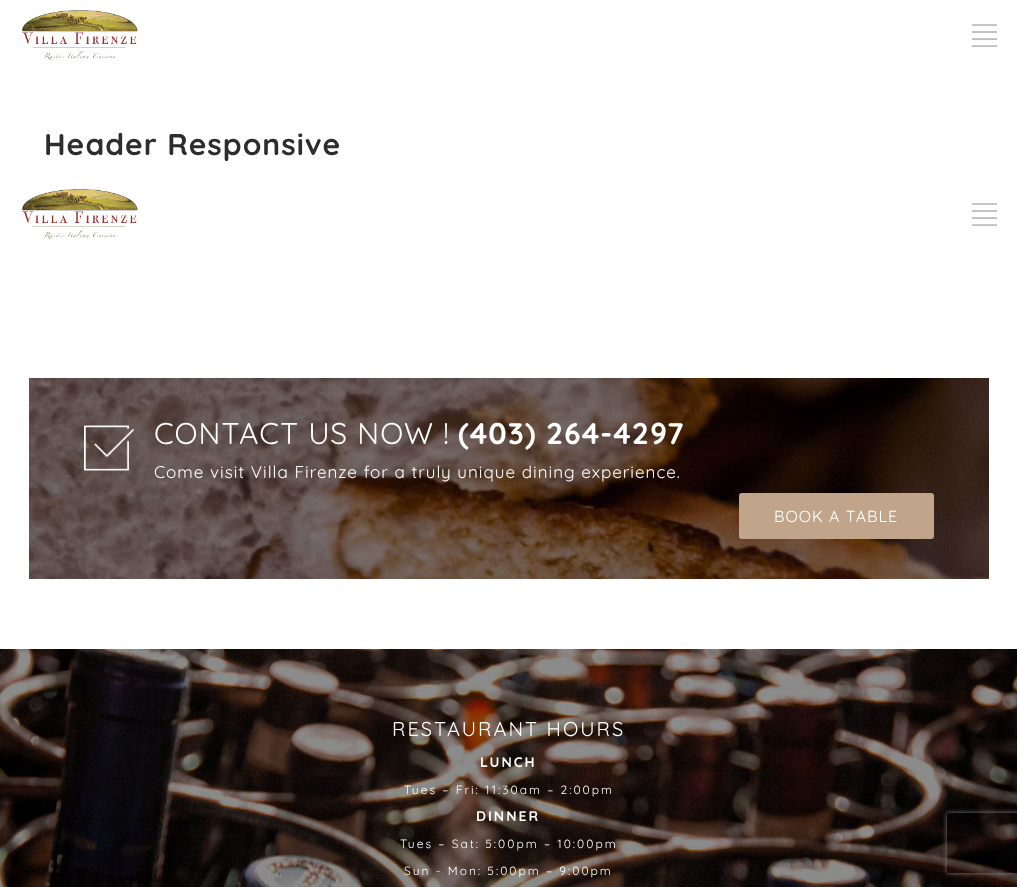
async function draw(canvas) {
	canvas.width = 1017;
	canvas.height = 887;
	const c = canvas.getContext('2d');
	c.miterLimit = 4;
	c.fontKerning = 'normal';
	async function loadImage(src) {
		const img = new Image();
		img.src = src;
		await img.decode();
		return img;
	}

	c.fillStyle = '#fff';
	c.fillRect(0, 0, 1017, 887);
	c.drawImage(await loadImage('img1.png'), 22, 10, 116, 50);
	c.drawImage(await loadImage('img2.png'), 972, 24, 25, 23);
	c.letterSpacing = '1px';
	c.font = 'bold 30px Quicksand';
	c.fillStyle = '#2d2d2d';
	c.fillText('Header Responsive', 44, 155);
	c.drawImage(await loadImage('img3.png'), 22, 189, 116, 50);
	c.drawImage(await loadImage('img2.png'), 972, 203, 25, 23);
	c.drawImage(await loadImage('img4.png'), 29, 378, 960, 201);
	c.drawImage(await loadImage('img5.png'), 84, 425, 50, 46);
	c.font = '30px Quicksand';
	c.fillStyle = '#fff';
	c.fillText('CONTACT US NOW !', 154, 444);
	c.font = 'bold 30px Quicksand';
	c.fillText('(403) 264-4297', 458, 444);
	c.font = '17px Quicksand';
	c.fillText('Come visit Villa Firenze for a truly unique dining experience.', 154, 478);
	c.fillStyle = '#c0a58a';
	c.beginPath();
	c.roundRect(739, 493, 195, 46, 3);
	c.fill();
	c.font = '16px Quicksand';
	c.fillStyle = '#fff';
	c.fillText('BOOK A TABLE', 774, 522);
	c.drawImage(await loadImage('img6.png'), 0, 649, 1017, 238);
	c.letterSpacing = '2px';
	c.font = '20px Quicksand';
	c.fillText('RESTAURANT HOURS', 392, 736);
	c.font = 'bold 14px Quicksand';
	c.fillText('LUNCH', 480, 767);
	c.font = '12px Quicksand';
	c.fillText('Tues – Fri: 11:30am – 2:00pm', 404, 794);
	c.font = 'bold 14px Quicksand';
	c.fillText('DINNER', 476, 821);
	c.font = '12px Quicksand';
	c.fillText('Tues – Sat: 5:00pm – 10:00pm', 400, 848);
	c.fillText('Sun - Mon: 5:00pm – 9:00pm', 404, 875);
	c.save();
	c.beginPath();
	c.moveTo(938, 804);
	c.lineTo(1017, 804);
	c.lineTo(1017, 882);
	c.lineTo(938, 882);
	c.closePath();
	c.moveTo(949, 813);
	c.lineTo(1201, 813);
	c.bezierCurveTo(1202, 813, 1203, 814, 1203, 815);
	c.lineTo(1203, 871);
	c.bezierCurveTo(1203, 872, 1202, 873, 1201, 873);
	c.lineTo(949, 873);
	c.bezierCurveTo(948, 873, 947, 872, 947, 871);
	c.lineTo(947, 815);
	c.bezierCurveTo(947, 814, 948, 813, 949, 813);
	c.closePath();
	c.clip('evenodd');
	c.fillStyle = '#808080';
	c.filter = 'blur(2.5px)';
	c.beginPath();
	c.roundRect(947, 813, 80, 60, 2);
	c.fill();
	c.filter = 'none';
	c.restore();
}

draw(document.querySelector('canvas'));
